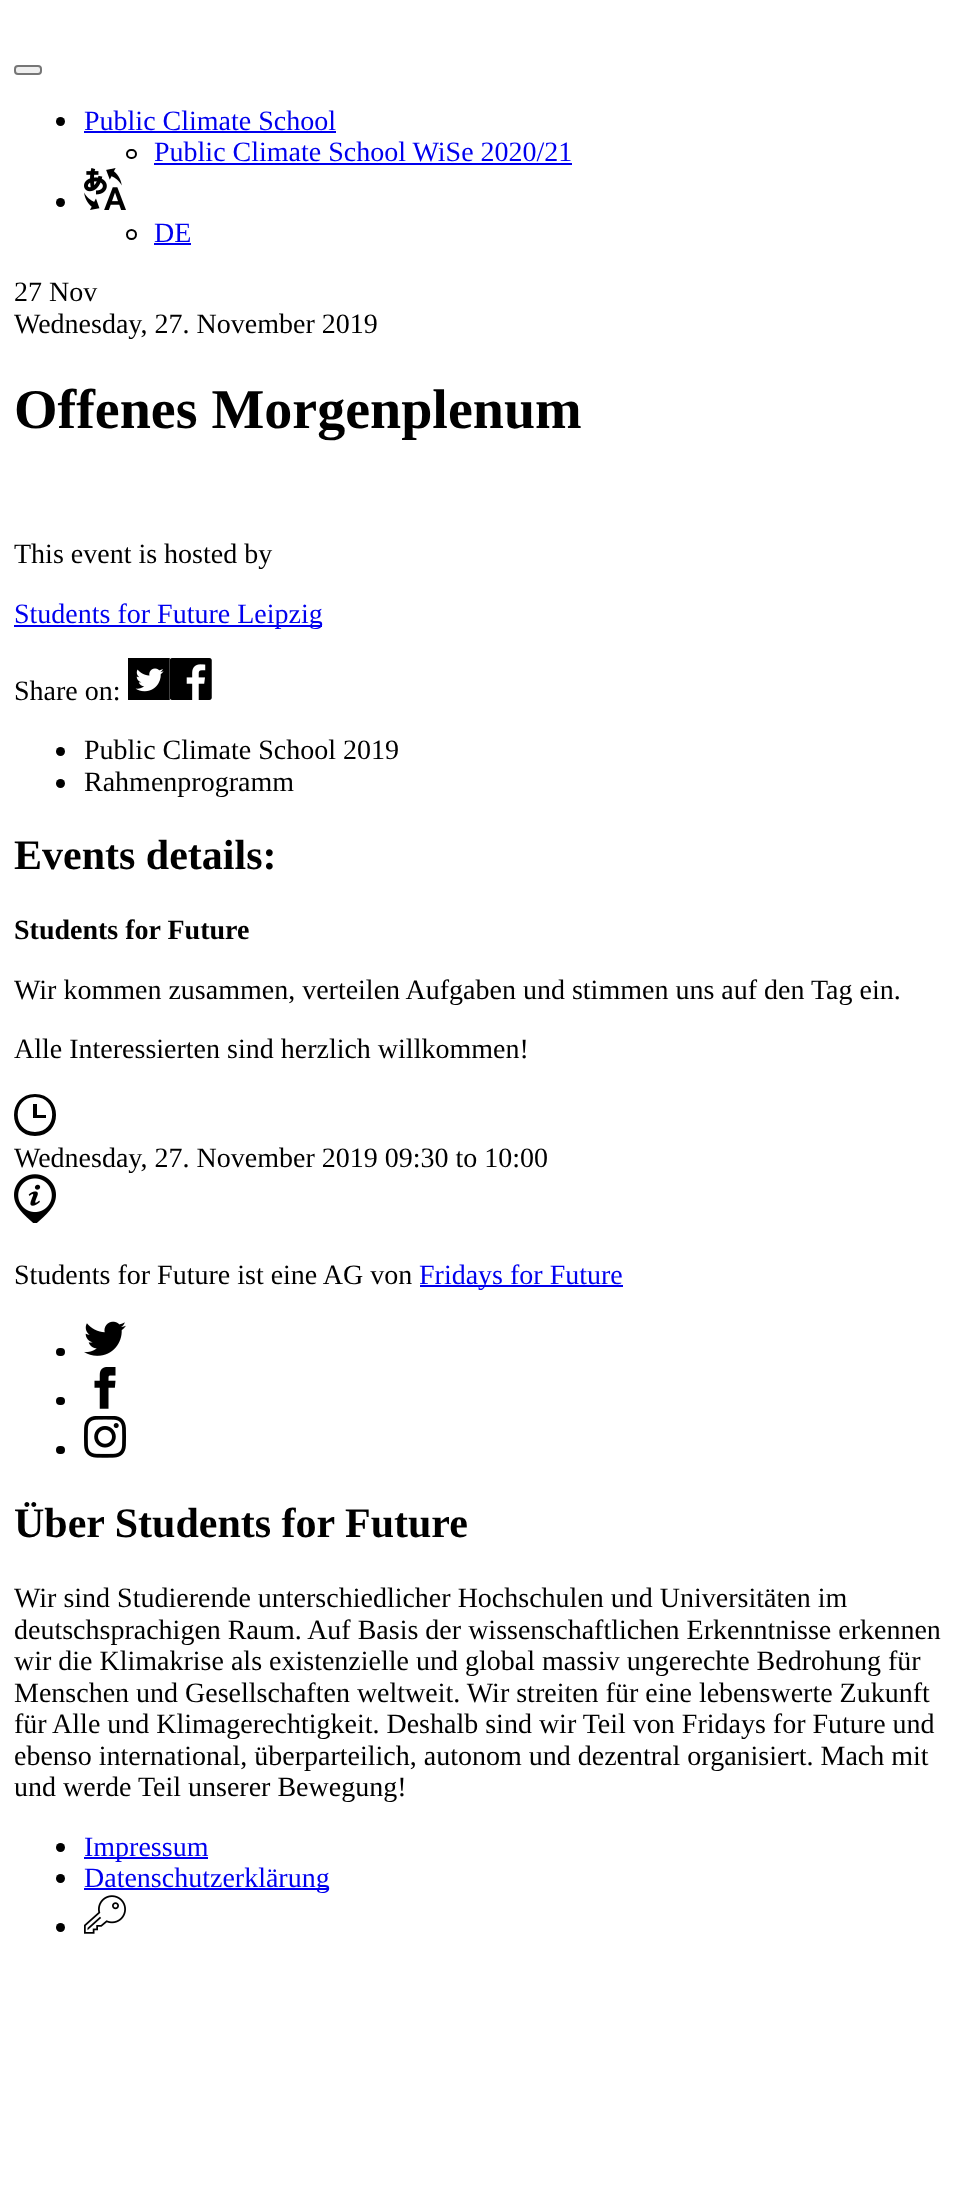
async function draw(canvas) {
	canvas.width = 976;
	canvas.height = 2194;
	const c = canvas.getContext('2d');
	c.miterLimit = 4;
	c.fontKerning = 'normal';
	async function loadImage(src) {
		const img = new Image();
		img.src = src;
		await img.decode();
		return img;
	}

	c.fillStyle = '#fff';
	c.fillRect(0, 0, 976, 2194);
	c.fillStyle = '#efefef';
	c.beginPath();
	c.roundRect(15, 66, 26, 8, 3);
	c.fill();
	c.strokeStyle = '#767676';
	c.lineWidth = 2;
	c.stroke();
	c.fillStyle = '#000';
	c.beginPath();
	c.arc(60.5, 121.5, 4.5, 0, 2 * Math.PI);
	c.fill();
	c.font = '28px Liberation Serif';
	c.fillStyle = '#00e';
	c.fillText('Public Climate School', 84, 130);
	c.fillRect(84, 131, 252, 2);
	c.beginPath();
	c.roundRect(127, 150, 9, 8, 4);
	c.strokeStyle = '#000';
	c.stroke();
	c.fillText('Public Climate School WiSe 2020/21', 154, 161);
	c.fillRect(154, 163, 418, 2);
	c.fillStyle = '#000';
	c.beginPath();
	c.arc(60.5, 202.5, 4.5, 0, 2 * Math.PI);
	c.fill();
	c.drawImage(await loadImage('img1.png'), 84, 168, 42, 42);
	c.beginPath();
	c.arc(131.5, 234.5, 4.5, 0, 2 * Math.PI);
	c.stroke();
	c.fillStyle = '#00e';
	c.fillText('DE', 154, 242);
	c.fillRect(154, 243, 37, 2);
	c.fillStyle = '#000';
	c.fillText('27 Nov', 14, 301);
	c.fillText('Wednesday, 27. November 2019', 14, 333);
	c.font = 'bold 56px Liberation Serif';
	c.fillText('Offenes Morgenplenum', 14, 428);
	c.font = '28px Liberation Serif';
	c.fillText('This event is hosted by', 14, 563);
	c.fillStyle = '#00e';
	c.fillRect(14, 625, 308, 2);
	c.fillText('Students for Future Leipzig', 14, 623);
	c.fillStyle = '#000';
	c.fillText('Share on:', 14, 700);
	c.drawImage(await loadImage('img2.png'), 128, 658, 42, 42);
	c.drawImage(await loadImage('img3.png'), 170, 658, 42, 42);
	c.beginPath();
	c.arc(60.5, 751.5, 4.5, 0, 2 * Math.PI);
	c.fill();
	c.fillText('Public Climate School 2019', 84, 759);
	c.beginPath();
	c.arc(60.5, 783.5, 4.5, 0, 2 * Math.PI);
	c.fill();
	c.fillText('Rahmenprogramm', 84, 791);
	c.font = 'bold 42px Liberation Serif';
	c.fillText('Events details:', 14, 869);
	c.font = 'bold 28px Liberation Serif';
	c.fillText('Students for Future', 14, 939);
	c.font = '28px Liberation Serif';
	c.fillText('Wir kommen zusammen, verteilen Aufgaben und stimmen uns auf den Tag ein.', 14, 999);
	c.fillText('Alle Interessierten sind herzlich willkommen!', 14, 1058);
	c.beginPath();
	c.moveTo(35, 1097);
	c.bezierCurveTo(58, 1097, 58, 1132, 35, 1132);
	c.bezierCurveTo(12, 1132, 12, 1097, 35, 1097);
	c.closePath();
	c.moveTo(35, 1094);
	c.bezierCurveTo(7, 1094, 7, 1136, 35, 1136);
	c.bezierCurveTo(63, 1136, 63, 1094, 35, 1094);
	c.closePath();
	c.moveTo(37, 1115);
	c.lineTo(37, 1104);
	c.lineTo(33, 1104);
	c.lineTo(33, 1118);
	c.lineTo(46, 1118);
	c.lineTo(46, 1115);
	c.closePath();
	c.fill();
	c.fillText('Wednesday, 27. November 2019 09:30 to 10:00', 14, 1167);
	c.drawImage(await loadImage('img4.png'), 14, 1174, 42, 49);
	c.fillText('Students for Future ist eine AG von', 14, 1284);
	c.fillStyle = '#00e';
	c.fillRect(420, 1285, 203, 2);
	c.fillText('Fridays for Future', 419, 1284);
	c.fillStyle = '#000';
	c.beginPath();
	c.roundRect(56, 1348, 9, 8, 4);
	c.fill();
	c.drawImage(await loadImage('img5.png'), 84, 1321, 42, 35);
	c.beginPath();
	c.roundRect(56, 1397, 9, 8, 4);
	c.fill();
	c.drawImage(await loadImage('img6.png'), 94, 1367, 22, 42);
	c.beginPath();
	c.roundRect(56, 1446, 9, 8, 4);
	c.fill();
	c.drawImage(await loadImage('img7.png'), 84, 1416, 42, 42);
	c.font = 'bold 42px Liberation Serif';
	c.fillText('Über Students for Future', 14, 1537);
	c.font = '28px Liberation Serif';
	for (const [text, x, y] of [
		['Wir sind Studierende unterschiedlicher Hochschulen und Universitäten im', 14, 1607],
		['deutschsprachigen Raum. Auf Basis der wissenschaftlichen Erkenntnisse erkennen', 14, 1639],
		['wir die Klimakrise als existenzielle und global massiv ungerechte Bedrohung für', 14, 1670],
		['Menschen und Gesellschaften weltweit. Wir streiten für eine lebenswerte Zukunft', 14, 1702],
		['für Alle und Klimagerechtigkeit. Deshalb sind wir Teil von Fridays for Future und', 14, 1733],
		['ebenso international, überparteilich, autonom und dezentral organisiert. Mach mit', 14, 1765],
		['und werde Teil unserer Bewegung!', 14, 1796],
	]) {
		c.fillText(text, x, y);
	}
	c.beginPath();
	c.arc(60.5, 1847.5, 4.5, 0, 2 * Math.PI);
	c.fill();
	c.fillStyle = '#00e';
	c.fillRect(84, 1857, 124, 2);
	c.fillText('Impressum', 84, 1856);
	c.fillStyle = '#000';
	c.beginPath();
	c.arc(60.5, 1878.5, 4.5, 0, 2 * Math.PI);
	c.fill();
	c.fillStyle = '#00e';
	c.fillRect(84, 1888, 245, 2);
	c.fillText('Datenschutzerklärung', 84, 1887);
	c.fillStyle = '#000';
	c.beginPath();
	c.arc(60.5, 1927.5, 4.5, 0, 2 * Math.PI);
	c.fill();
	c.drawImage(await loadImage('img8.png'), 84, 1895, 42, 39);
}

draw(document.querySelector('canvas'));
